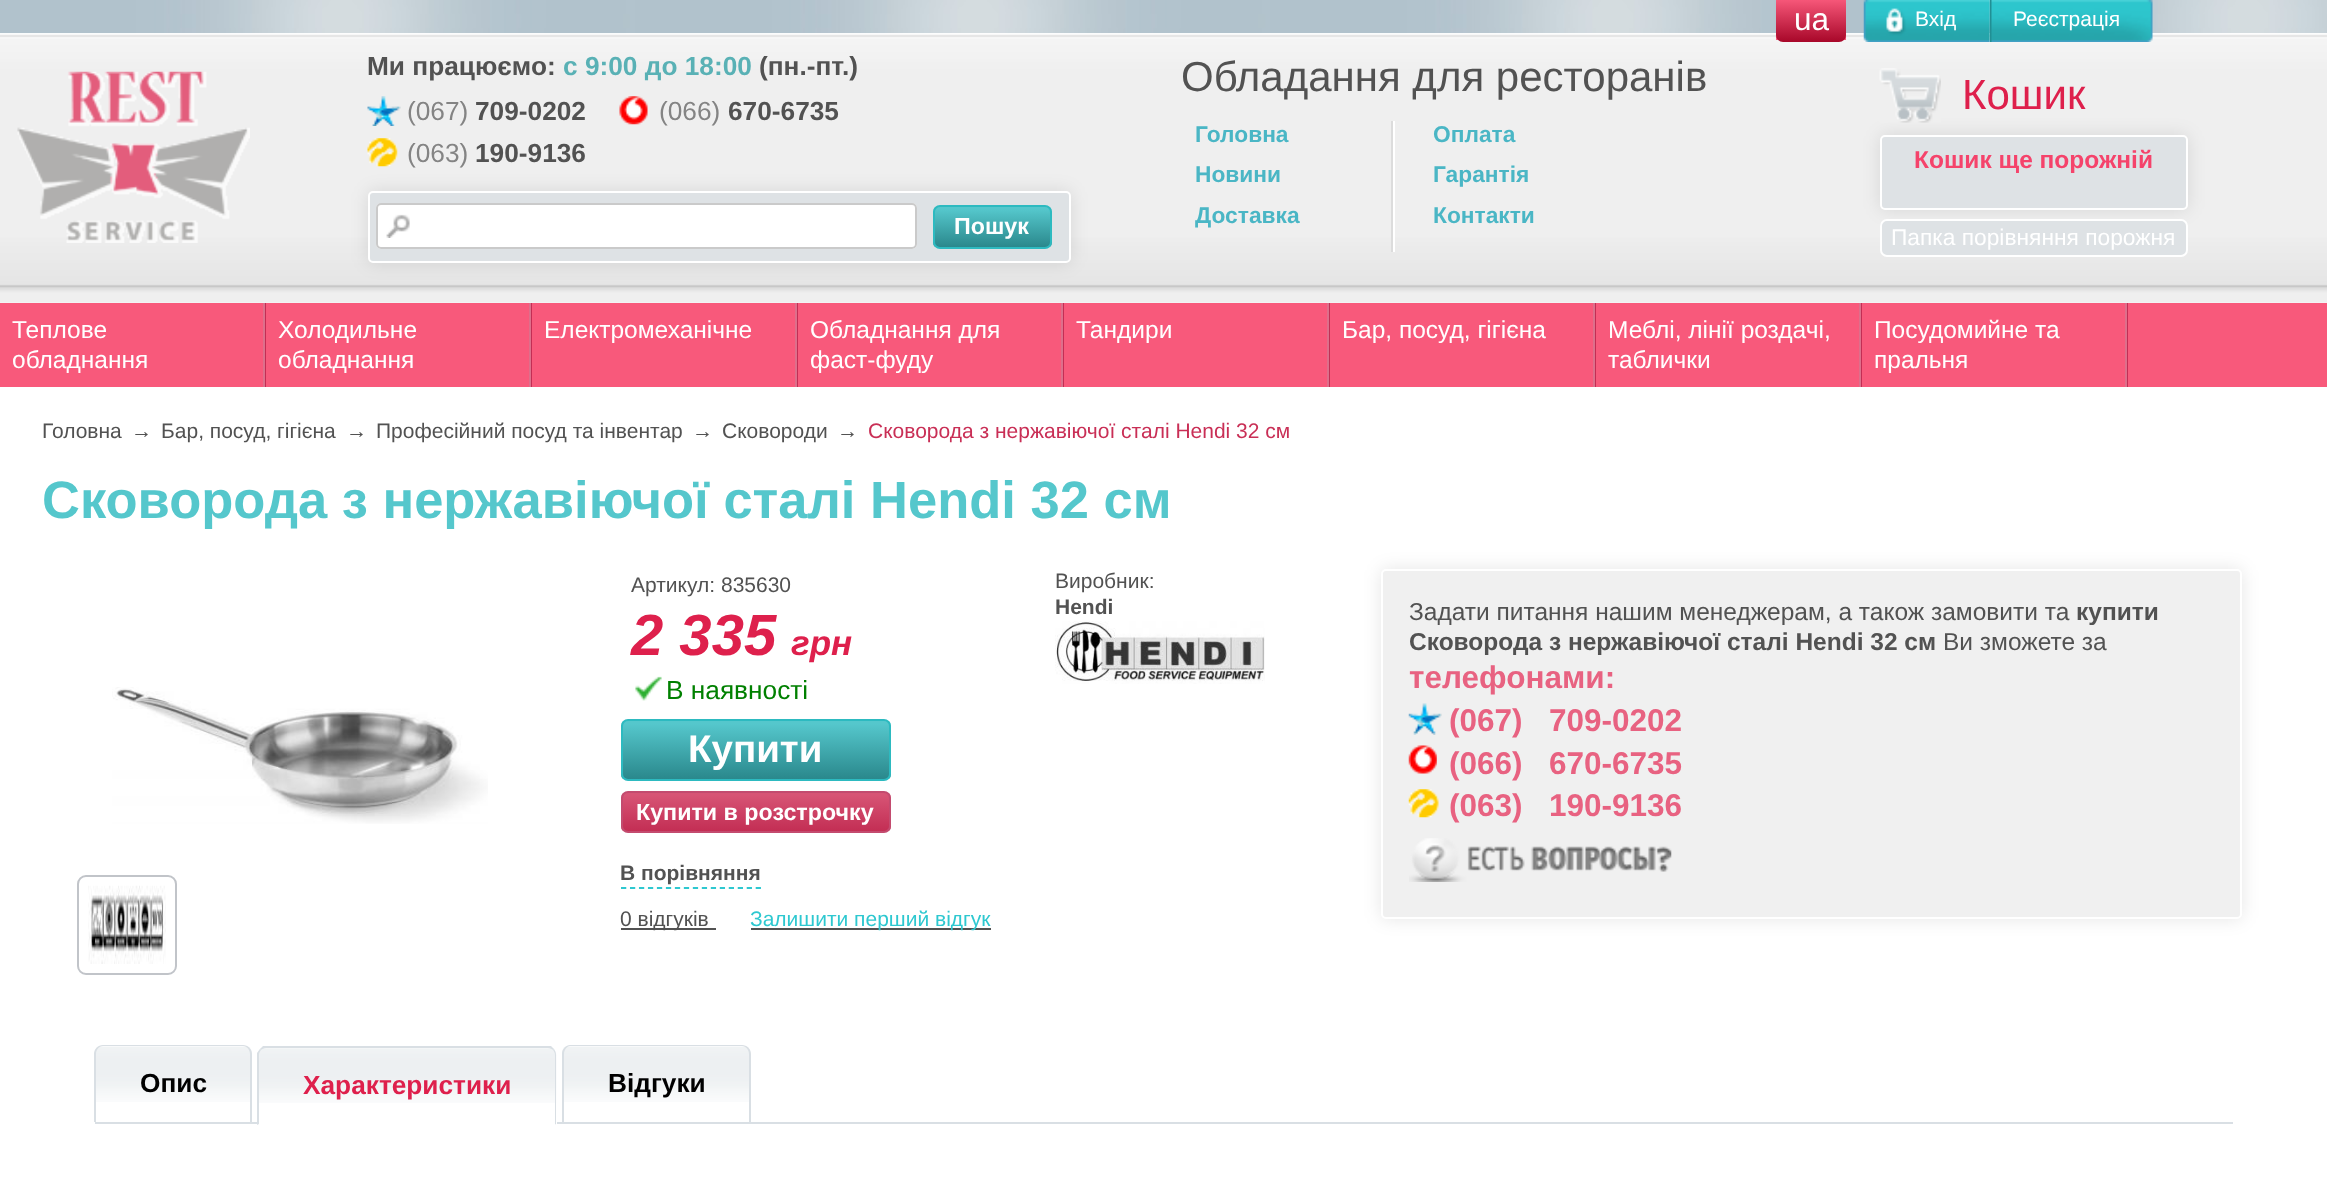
async function draw(canvas) {
	canvas.width = 2327;
	canvas.height = 1184;
	const c = canvas.getContext('2d');
	c.miterLimit = 4;
	c.fontKerning = 'normal';
	async function loadImage(src) {
		const img = new Image();
		img.src = src;
		await img.decode();
		return img;
	}
	let gradient;

	c.fillStyle = '#fff';
	c.fillRect(0, 0, 2327, 1184);
	c.drawImage(await loadImage('img1.png'), 0, 0, 2327, 34);
	c.drawImage(await loadImage('img4.png'), 0, 33, 2327, 270);
	c.fillStyle = '#f8597b';
	c.fillRect(1776, 0, 70, 40);
	gradient = c.createLinearGradient(1776, -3.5, 1776, 42);
	gradient.addColorStop(0.05, '#f8597b');
	gradient.addColorStop(1, '#a80729');
	c.fillStyle = gradient;
	c.beginPath();
	c.roundRect(1776, -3, 70, 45, 7);
	c.fill();
	c.font = '31.5px Liberation Sans';
	c.fillStyle = '#fff';
	c.fillText('ua', 1794, 30);
	c.drawImage(await loadImage('img2.png'), 1863, 0, 127, 42);
	c.font = '21px Liberation Sans';
	c.fillText('Вхід', 1915, 26);
	c.fillStyle = '#218f94';
	c.fillRect(1990, 0, 2, 42);
	c.drawImage(await loadImage('img3.png'), 1991, 0, 162, 42);
	c.fillStyle = '#fff';
	c.fillText('Реєстрація', 2013, 26);
	c.drawImage(await loadImage('img5.png'), 17, 71, 233, 172);
	c.font = 'bold 26.25px Liberation Sans';
	c.fillStyle = '#525252';
	c.fillText('Ми працюємо:', 367, 75);
	c.fillStyle = '#59b1b5';
	c.fillText('с 9:00 до 18:00', 563, 75);
	c.fillStyle = '#525252';
	c.fillText('(пн.-пт.)', 759, 75);
	c.drawImage(await loadImage('img6.png'), 367, 96, 34, 30);
	c.font = '26.25px Liberation Sans';
	c.fillStyle = '#848484';
	c.fillText('(067)', 407, 120);
	c.font = 'bold 26.25px Liberation Sans';
	c.fillStyle = '#525252';
	c.fillText('709-0202', 475, 120);
	c.drawImage(await loadImage('img7.png'), 619, 96, 29, 29);
	c.font = '26.25px Liberation Sans';
	c.fillStyle = '#848484';
	c.fillText('(066)', 659, 120);
	c.font = 'bold 26.25px Liberation Sans';
	c.fillStyle = '#525252';
	c.fillText('670-6735', 728, 120);
	c.drawImage(await loadImage('img8.png'), 367, 138, 31, 29);
	c.font = '26.25px Liberation Sans';
	c.fillStyle = '#848484';
	c.fillText('(063)', 407, 162);
	c.font = 'bold 26.25px Liberation Sans';
	c.fillStyle = '#525252';
	c.fillText('190-9136', 475, 162);
	c.fillStyle = '#0000001a';
	c.filter = 'blur(9px)';
	c.beginPath();
	c.roundRect(368, 191, 703, 72, 5);
	c.fill();
	c.filter = 'none';
	c.fillStyle = '#dee2e5';
	c.beginPath();
	c.roundRect(369, 192, 701, 70, 4);
	c.fill();
	c.strokeStyle = '#fff';
	c.lineWidth = 2;
	c.stroke();
	c.fillStyle = '#fff';
	c.beginPath();
	c.roundRect(376, 203, 541, 46, 5);
	c.fill();
	c.drawImage(await loadImage('img9.png'), 386, 214, 24, 24);
	c.beginPath();
	c.roundRect(377, 204, 539, 44, 4);
	c.strokeStyle = '#cacaca';
	c.stroke();
	c.save();
	c.beginPath();
	c.roundRect(933, 205, 119, 44, 7);
	c.clip();
	gradient = c.createLinearGradient(935, 207, 935, 247);
	gradient.addColorStop(0.05, '#55c7cc');
	gradient.addColorStop(1, '#2a888c');
	c.fillStyle = gradient;
	c.fillRect(933, 207, 119, 40);
	c.restore();
	c.beginPath();
	c.roundRect(934, 206, 117, 42, 6);
	c.strokeStyle = '#2dbac0';
	c.stroke();
	c.font = 'bold 23.25px Liberation Sans';
	c.fillText('Пошук', 954, 234);
	c.font = '42px Liberation Sans';
	c.fillStyle = '#525252';
	c.fillText('Обладання для ресторанів', 1181, 91);
	c.fillStyle = '#0000001a';
	c.filter = 'blur(9px)';
	c.beginPath();
	c.roundRect(1880, 135, 308, 75, 5);
	c.fill();
	c.filter = 'none';
	c.drawImage(await loadImage('img10.png'), 1879, 68, 62, 55);
	c.fillStyle = '#de204c';
	c.fillText('Кошик', 1962, 109);
	c.fillStyle = '#dee2e5';
	c.beginPath();
	c.roundRect(1881, 136, 306, 73, 4);
	c.fill();
	c.strokeStyle = '#fff';
	c.stroke();
	c.font = 'bold 24.5px Liberation Sans';
	c.fillStyle = '#f5436b';
	c.fillText('Кошик ще порожній', 1914, 168);
	c.fillStyle = '#dee2e5';
	c.beginPath();
	c.roundRect(1881, 220, 306, 36, 6);
	c.fill();
	c.stroke();
	c.font = '22.75px Liberation Sans';
	c.fillStyle = '#fff';
	c.fillText('Папка порівняння порожня', 1891, 245);
	c.font = 'bold 22.75px Liberation Sans';
	c.fillStyle = '#4ab6c5';
	for (const [text, x, y] of [
		['Головна', 1195, 142],
		['Новини', 1195, 182],
		['Доставка', 1195, 223],
	]) {
		c.fillText(text, x, y);
	}
	c.fillStyle = '#fff';
	c.fillRect(1393, 121, 2, 131);
	c.fillStyle = '#dcdcdc';
	c.fillRect(1391, 121, 2, 131);
	c.fillStyle = '#4ab6c5';
	for (const [text, x, y] of [
		['Оплата', 1433, 142],
		['Гарантія', 1433, 182],
		['Контакти', 1433, 223],
	]) {
		c.fillText(text, x, y);
	}
	c.fillStyle = '#f8597b';
	c.fillRect(0, 303, 2327, 84);
	c.font = '24.5px Liberation Sans';
	c.fillStyle = '#fff';
	c.fillText('Теплове', 12, 338);
	c.fillText('обладнання', 12, 368);
	c.fillStyle = '#c32e54';
	c.fillRect(265, 303, 1, 84);
	c.fillStyle = '#dd6f8b';
	c.fillRect(263, 303, 2, 84);
	c.fillStyle = '#fff';
	c.fillText('Холодильне', 278, 338);
	c.fillText('обладнання', 278, 368);
	c.fillStyle = '#c32e54';
	c.fillRect(531, 303, 1, 84);
	c.fillStyle = '#dd6f8b';
	c.fillRect(529, 303, 2, 84);
	c.fillStyle = '#fff';
	c.fillText('Електромеханічне', 544, 338);
	c.fillStyle = '#c32e54';
	c.fillRect(797, 303, 1, 84);
	c.fillStyle = '#dd6f8b';
	c.fillRect(795, 303, 2, 84);
	c.fillStyle = '#fff';
	c.fillText('Обладнання для', 810, 338);
	c.fillText('фаст-фуду', 810, 368);
	c.fillStyle = '#c32e54';
	c.fillRect(1063, 303, 1, 84);
	c.fillStyle = '#dd6f8b';
	c.fillRect(1061, 303, 2, 84);
	c.fillStyle = '#fff';
	c.fillText('Тандири', 1076, 338);
	c.fillStyle = '#c32e54';
	c.fillRect(1329, 303, 1, 84);
	c.fillStyle = '#dd6f8b';
	c.fillRect(1327, 303, 2, 84);
	c.fillStyle = '#fff';
	c.fillText('Бар, посуд, гігієна', 1342, 338);
	c.fillStyle = '#c32e54';
	c.fillRect(1595, 303, 1, 84);
	c.fillStyle = '#dd6f8b';
	c.fillRect(1593, 303, 2, 84);
	c.fillStyle = '#fff';
	c.fillText('Меблі, лінії роздачі,', 1608, 338);
	c.fillText('таблички', 1608, 368);
	c.fillStyle = '#c32e54';
	c.fillRect(1861, 303, 1, 84);
	c.fillStyle = '#dd6f8b';
	c.fillRect(1859, 303, 2, 84);
	c.fillStyle = '#fff';
	c.fillText('Посудомийне та', 1874, 338);
	c.fillText('пральня', 1874, 368);
	c.fillStyle = '#c32e54';
	c.fillRect(2127, 303, 1, 84);
	c.fillStyle = '#dd6f8b';
	c.fillRect(2125, 303, 2, 84);
	c.font = '21px Liberation Sans';
	c.fillStyle = '#525252';
	for (const [text, x, y] of [
		['Головна', 42, 438],
		['→', 131, 438],
		['Бар, посуд, гігієна', 161, 438],
		['→', 346, 438],
		['Професійний посуд та інвентар', 376, 438],
		['→', 692, 438],
		['Сковороди', 722, 438],
		['→', 837, 438],
	]) {
		c.fillText(text, x, y);
	}
	c.fillStyle = '#c92f56';
	c.fillText('Сковорода з нержавіючої сталі Hendi 32 см', 868, 438);
	c.font = 'bold 52.5px Liberation Sans';
	c.fillStyle = '#55c7cc';
	c.fillText('Сковорода з нержавіючої сталі Hendi 32 см', 42, 518);
	c.drawImage(await loadImage('img11.png'), 112, 687, 376, 137);
	c.beginPath();
	c.roundRect(78, 876, 98, 98, 8);
	c.strokeStyle = '#c1c4c9';
	c.stroke();
	c.drawImage(await loadImage('img12.png'), 88, 885, 78, 79);
	c.font = '21px Liberation Sans';
	c.fillStyle = '#525252';
	c.fillText('Артикул: 835630', 631, 592);
	c.font = 'italic bold 58px Liberation Sans';
	c.fillStyle = '#de204c';
	c.fillText('2 335', 631, 655);
	c.font = 'italic bold 35px Liberation Sans';
	c.fillText('грн', 791, 655);
	c.drawImage(await loadImage('img13.png'), 635, 676, 27, 25);
	c.font = '26.25px Liberation Sans';
	c.fillStyle = '#008000';
	c.fillText('В наявності', 666, 699);
	c.save();
	c.beginPath();
	c.roundRect(621, 719, 270, 62, 7);
	c.clip();
	gradient = c.createLinearGradient(623, 721, 623, 779);
	gradient.addColorStop(0.05, '#55c7cc');
	gradient.addColorStop(1, '#2a888c');
	c.fillStyle = gradient;
	c.fillRect(621, 721, 270, 58);
	c.restore();
	c.beginPath();
	c.roundRect(622, 720, 268, 60, 6);
	c.strokeStyle = '#2dbac0';
	c.stroke();
	c.font = 'bold 38.5px Liberation Sans';
	c.fillStyle = '#fff';
	c.fillText('Купити', 688, 762);
	c.save();
	c.beginPath();
	c.roundRect(621, 791, 270, 42, 7);
	c.clip();
	gradient = c.createLinearGradient(623, 793, 623, 831);
	gradient.addColorStop(0.05, '#d75475');
	gradient.addColorStop(1, '#c32e54');
	c.fillStyle = gradient;
	c.fillRect(621, 793, 270, 38);
	c.restore();
	c.beginPath();
	c.roundRect(622, 792, 268, 40, 6);
	c.strokeStyle = '#c34b6f';
	c.stroke();
	c.font = 'bold 23.25px Liberation Sans';
	c.fillText('Купити в розстрочку', 636, 820);
	c.beginPath();
	c.moveTo(621, 888);
	c.lineTo(761, 888);
	c.strokeStyle = '#2ec8d0';
	c.lineWidth = 1.8;
	c.setLineDash([5.25, 3.73]);
	c.stroke();
	c.font = 'bold 21px Liberation Sans';
	c.fillStyle = '#525252';
	c.fillText('В порівняння', 620, 880);
	c.fillRect(621, 928, 95, 2);
	c.font = '21px Liberation Sans';
	c.fillText('0 відгуків', 620, 926);
	c.fillRect(751, 928, 240, 2);
	c.fillStyle = '#2ec8d0';
	c.fillText('Залишити перший відгук', 750, 926);
	c.fillStyle = '#525252';
	c.fillText('Виробник:', 1055, 588);
	c.font = 'bold 21px Liberation Sans';
	c.fillText('Hendi', 1055, 614);
	c.drawImage(await loadImage('img14.png'), 1055, 621, 210, 63);
	c.fillStyle = '#0000001a';
	c.filter = 'blur(9px)';
	c.beginPath();
	c.roundRect(1381, 569, 861, 350, 5);
	c.fill();
	c.filter = 'none';
	c.fillStyle = '#f0f0f0';
	c.beginPath();
	c.roundRect(1382, 570, 859, 348, 4);
	c.fill();
	c.strokeStyle = '#fff';
	c.lineWidth = 2;
	c.setLineDash([]);
	c.stroke();
	c.font = '24.5px Liberation Sans';
	c.fillStyle = '#525252';
	c.fillText('Задати питання нашим менеджерам, а також замовити та', 1409, 620);
	c.font = 'bold 24.5px Liberation Sans';
	c.fillText('купити', 2076, 620);
	c.fillText('Сковорода з нержавіючої сталі Hendi 32 см', 1409, 650);
	c.font = '24.5px Liberation Sans';
	c.fillText('Ви зможете за', 1943, 650);
	c.font = 'bold 31.5px Liberation Sans';
	c.fillStyle = '#e86281';
	c.fillText('телефонами:', 1409, 688);
	c.drawImage(await loadImage('img15.png'), 1408, 703, 34, 32);
	c.fillText('(067)', 1449, 731);
	c.fillText('709-0202', 1549, 731);
	c.drawImage(await loadImage('img16.png'), 1408, 745, 29, 29);
	c.fillText('(066)', 1449, 774);
	c.fillText('670-6735', 1549, 774);
	c.drawImage(await loadImage('img17.png'), 1408, 789, 31, 29);
	c.fillText('(063)', 1449, 816);
	c.fillText('190-9136', 1549, 816);
	c.drawImage(await loadImage('img18.png'), 1409, 838, 263, 44);
	c.fillStyle = '#d9dfe4';
	c.fillRect(95, 1122, 2138, 2);
	c.drawImage(await loadImage('img19.png'), 94, 1046, 158, 56);
	c.beginPath();
	c.moveTo(103, 1045);
	c.lineTo(243, 1045);
	c.bezierCurveTo(248, 1045, 252, 1049, 252, 1054);
	c.lineTo(252, 1122);
	c.lineTo(94, 1122);
	c.lineTo(94, 1054);
	c.bezierCurveTo(94, 1049, 98, 1045, 103, 1045);
	c.closePath();
	c.moveTo(103, 1046);
	c.lineTo(243, 1046);
	c.bezierCurveTo(247, 1046, 250, 1050, 250, 1054);
	c.lineTo(250, 1122);
	c.lineTo(96, 1122);
	c.lineTo(96, 1054);
	c.bezierCurveTo(96, 1050, 99, 1046, 103, 1046);
	c.closePath();
	c.fill('evenodd');
	c.font = 'bold 26.25px Liberation Sans';
	c.fillStyle = '#000';
	c.fillText('Опис', 140, 1092);
	c.fillStyle = '#fff';
	c.beginPath();
	c.roundRect(257, 1047, 300, 78, [9, 9, 0, 0]);
	c.fill();
	c.drawImage(await loadImage('img20.png'), 257, 1048, 300, 55);
	c.fillStyle = '#d9dfe4';
	c.beginPath();
	c.moveTo(266, 1048);
	c.bezierCurveTo(264, 1048, 262, 1049, 261, 1050);
	c.lineTo(260, 1049);
	c.lineTo(263, 1046);
	c.lineTo(551, 1046);
	c.lineTo(554, 1049);
	c.lineTo(553, 1050);
	c.bezierCurveTo(552, 1049, 550, 1048, 548, 1048);
	c.closePath();
	c.fill();
	c.beginPath();
	c.moveTo(554, 1049);
	c.bezierCurveTo(555, 1051, 556, 1053, 556, 1055);
	c.lineTo(556, 1125);
	c.lineTo(555, 1124);
	c.lineTo(555, 1055);
	c.bezierCurveTo(555, 1053, 554, 1051, 553, 1050);
	c.closePath();
	c.fill();
	c.fillStyle = '#fff';
	c.beginPath();
	c.moveTo(556, 1125);
	c.lineTo(258, 1125);
	c.lineTo(259, 1124);
	c.lineTo(555, 1124);
	c.closePath();
	c.fill();
	c.fillStyle = '#d9dfe4';
	c.beginPath();
	c.moveTo(257, 1053);
	c.lineTo(260, 1049);
	c.lineTo(261, 1050);
	c.bezierCurveTo(260, 1051, 259, 1053, 259, 1055);
	c.lineTo(259, 1124);
	c.lineTo(257, 1125);
	c.closePath();
	c.fill();
	c.fillStyle = '#de204c';
	c.fillText('Характеристики', 303, 1094);
	c.drawImage(await loadImage('img21.png'), 562, 1046, 189, 56);
	c.fillStyle = '#d9dfe4';
	c.beginPath();
	c.moveTo(570, 1045);
	c.lineTo(742, 1045);
	c.bezierCurveTo(747, 1045, 751, 1049, 751, 1054);
	c.lineTo(751, 1122);
	c.lineTo(562, 1122);
	c.lineTo(562, 1054);
	c.bezierCurveTo(562, 1049, 566, 1045, 570, 1045);
	c.closePath();
	c.moveTo(570, 1046);
	c.lineTo(742, 1046);
	c.bezierCurveTo(746, 1046, 749, 1050, 749, 1054);
	c.lineTo(749, 1122);
	c.lineTo(564, 1122);
	c.lineTo(564, 1054);
	c.bezierCurveTo(564, 1050, 567, 1046, 570, 1046);
	c.closePath();
	c.fill('evenodd');
	c.fillStyle = '#000';
	c.fillText('Відгуки', 608, 1092);
}

draw(document.querySelector('canvas'));
